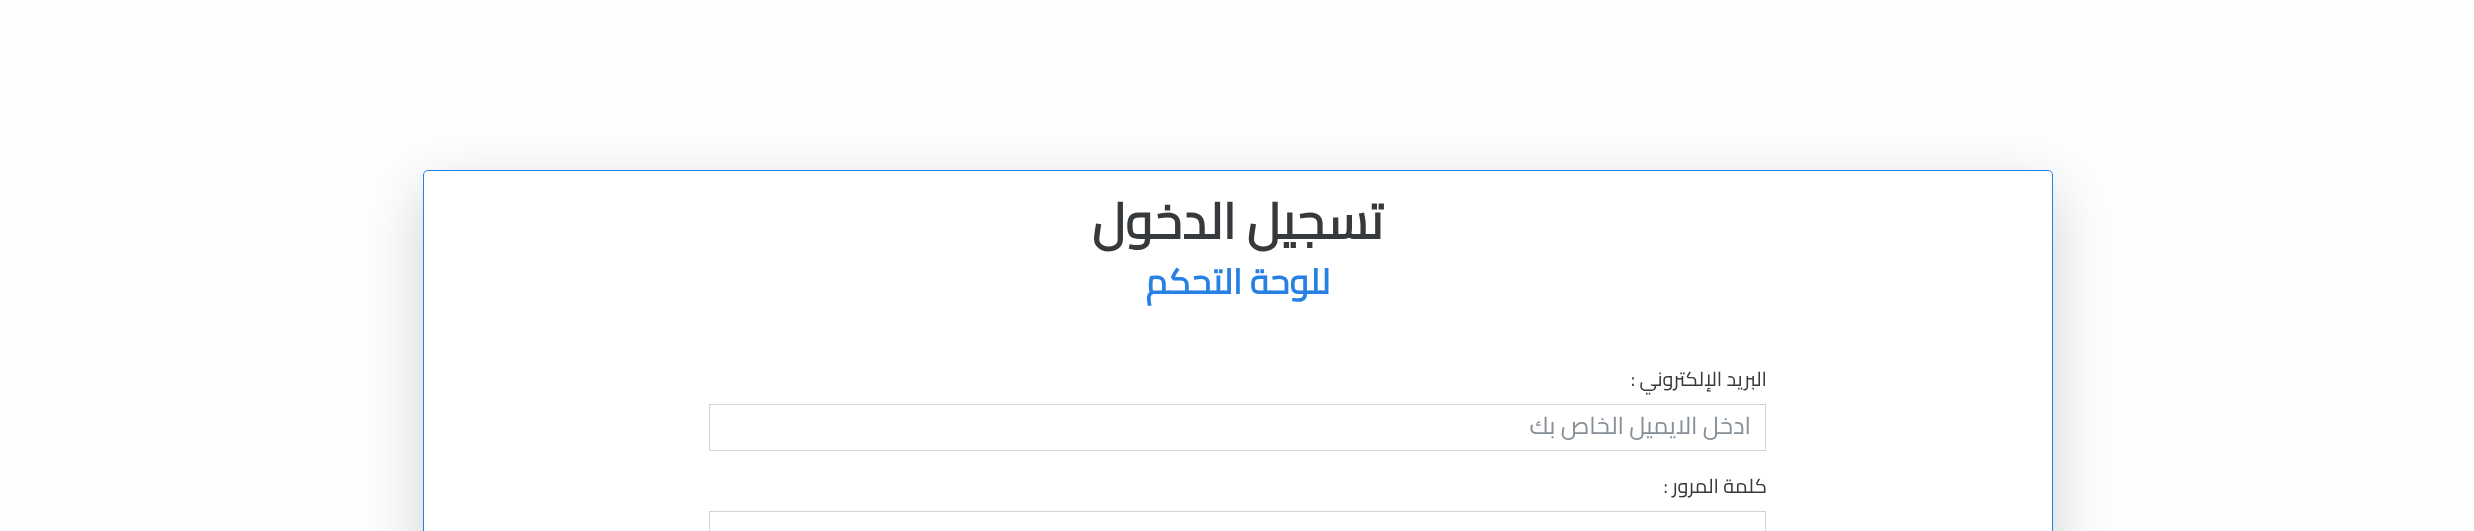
async function draw(canvas) {
	canvas.width = 2474;
	canvas.height = 531;
	const c = canvas.getContext('2d');
	c.miterLimit = 4;
	c.fontKerning = 'normal';

	c.fillStyle = '#fdffff';
	c.fillRect(0, 0, 2474, 531);
	c.fillStyle = '#0000002e';
	c.filter = 'blur(30px)';
	c.beginPath();
	c.roundRect(423, 190, 1630, 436, 5);
	c.fill();
	c.filter = 'none';
	c.fillStyle = '#fff';
	c.beginPath();
	c.roundRect(423.5, 170.5, 1629, 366, 4.5);
	c.fill();
	c.strokeStyle = '#2780e3';
	c.stroke();
	c.direction = 'rtl';
	c.font = 'bold 50px Cairo';
	c.fillStyle = '#373a3c';
	c.fillText('تسجيل الدخول', 1383, 239);
	c.font = 'bold 35px Cairo';
	c.fillStyle = '#2780e3';
	c.fillText('للوحة التحكم', 1330, 294);
	c.font = '20px Cairo';
	c.fillStyle = '#373a3c';
	c.fillText('البريد الإلكتروني :', 1767, 386);
	c.strokeStyle = '#ced4da';
	c.strokeRect(709.5, 404.5, 1056, 46);
	c.font = '24px Cairo';
	c.fillStyle = '#868e96';
	c.fillText('ادخل الايميل الخاص بك', 1751, 434);
	c.font = '20px Cairo';
	c.fillStyle = '#373a3c';
	c.fillText('كلمة المرور :', 1767, 493);
	c.strokeRect(709.5, 511.5, 1056, 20);
}

draw(document.querySelector('canvas'));
